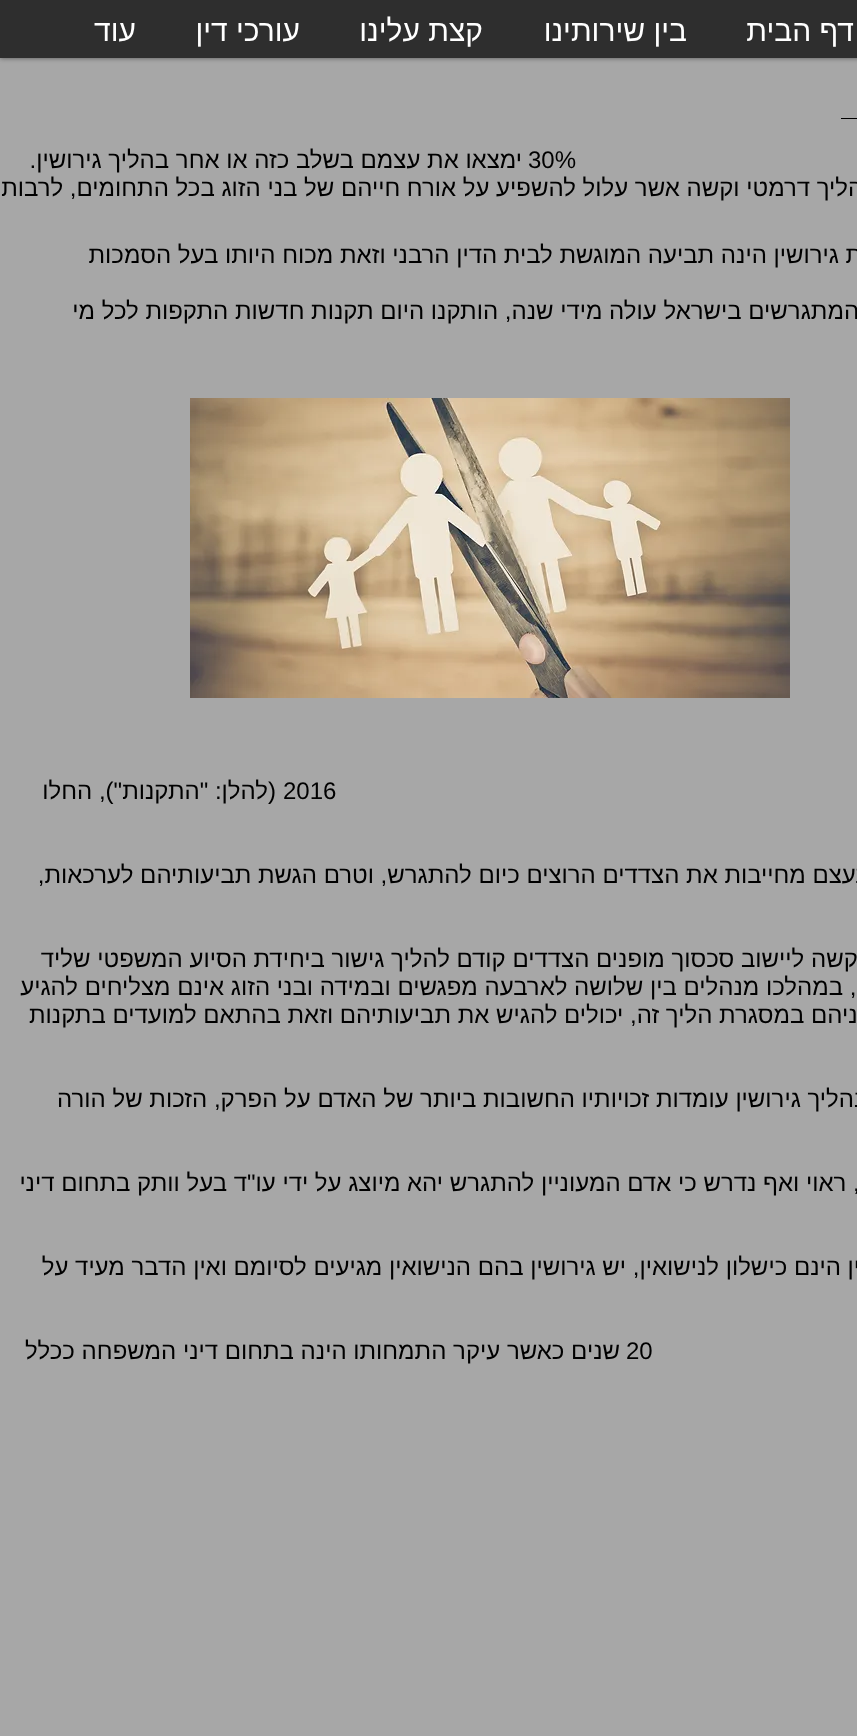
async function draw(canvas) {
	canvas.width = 857;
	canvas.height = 1736;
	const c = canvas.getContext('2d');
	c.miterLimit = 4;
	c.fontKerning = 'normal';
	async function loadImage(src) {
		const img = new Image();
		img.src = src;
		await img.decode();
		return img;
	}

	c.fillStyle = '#a7a7a7';
	c.fillRect(0, 0, 857, 1736);
	c.fillStyle = '#2e2e2eb3';
	c.filter = 'blur(2.5px)';
	c.beginPath();
	c.rect(0, 0, 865, 58);
	c.fill();
	c.filter = 'none';
	c.fillStyle = '#2e2e2e';
	c.fillRect(0, 0, 857, 58);
	c.direction = 'rtl';
	c.font = '30px Liberation Sans';
	c.fillStyle = '#fff';
	for (const [text, x, y] of [
		['דף הבית', 854, 41],
		['בין שירותינו', 687, 41],
		['קצת עלינו', 483, 41],
		['עורכי דין', 300, 41],
		['עוד', 136, 41],
	]) {
		c.fillText(text, x, y);
	}
	c.fillStyle = '#000';
	c.fillRect(841, 118, 16, 1);
	c.direction = 'ltr';
	c.font = '24px Liberation Sans';
	c.fillText('30%', 528, 168);
	c.direction = 'rtl';
	for (const [text, x, y] of [
		['ימצאו את עצמם בשלב כזה או אחר בהליך גירושין.', 522, 168],
		['גירושין הינו הליך דרמטי וקשה אשר עלול להשפיע על אורח חייהם של בני הזוג בכל התחומים, לרבות', 979, 196],
		['כידוע, תביעת גירושין הינה תביעה המוגשת לבית הדין הרבני וזאת מכוח היותו בעל הסמכות', 979, 263],
		['הואיל ואחוז המתגרשים בישראל עולה מידי שנה, הותקנו היום תקנות חדשות התקפות לכל מי', 979, 319],
	]) {
		c.fillText(text, x, y);
	}
	c.direction = 'ltr';
	c.fillText('2016', 283, 799);
	c.direction = 'rtl';
	for (const [text, x, y] of [
		['(להלן: "התקנות"), החלו', 276, 799],
		['תקנות אלו בעצם מחייבות את הצדדים הרוצים כיום להתגרש, וטרם הגשת תביעותיהם לערכאות,', 979, 883],
		['במסגרת הבקשה ליישוב סכסוך מופנים הצדדים קודם להליך גישור ביחידת הסיוע המשפטי שליד', 979, 967],
		['בית המשפט, במהלכו מנהלים בין שלושה לארבעה מפגשים ובמידה ובני הזוג אינם מצליחים להגיע', 979, 995],
		['להסכמים ביניהם במסגרת הליך זה, יכולים להגיש את תביעותיהם וזאת בהתאם למועדים בתקנות', 979, 1023],
		['אין ספק כי בהליך גירושין עומדות זכויותיו החשובות ביותר של האדם על הפרק, הזכות של הורה', 979, 1107],
		['לאור האמור, ראוי ואף נדרש כי אדם המעוניין להתגרש יהא מיוצג על ידי עו"ד בעל וותק בתחום דיני', 979, 1191],
		['לא כל גירושין הינם כישלון לנישואין, יש גירושין בהם הנישואין מגיעים לסיומם ואין הדבר מעיד על', 979, 1275],
	]) {
		c.fillText(text, x, y);
	}
	c.direction = 'ltr';
	c.fillText('20', 626, 1359);
	c.direction = 'rtl';
	c.fillText('שנים כאשר עיקר התמחותו הינה בתחום דיני המשפחה ככלל', 620, 1359);
	c.drawImage(await loadImage('img1.png'), 190, 398, 600, 300);
}

draw(document.querySelector('canvas'));
